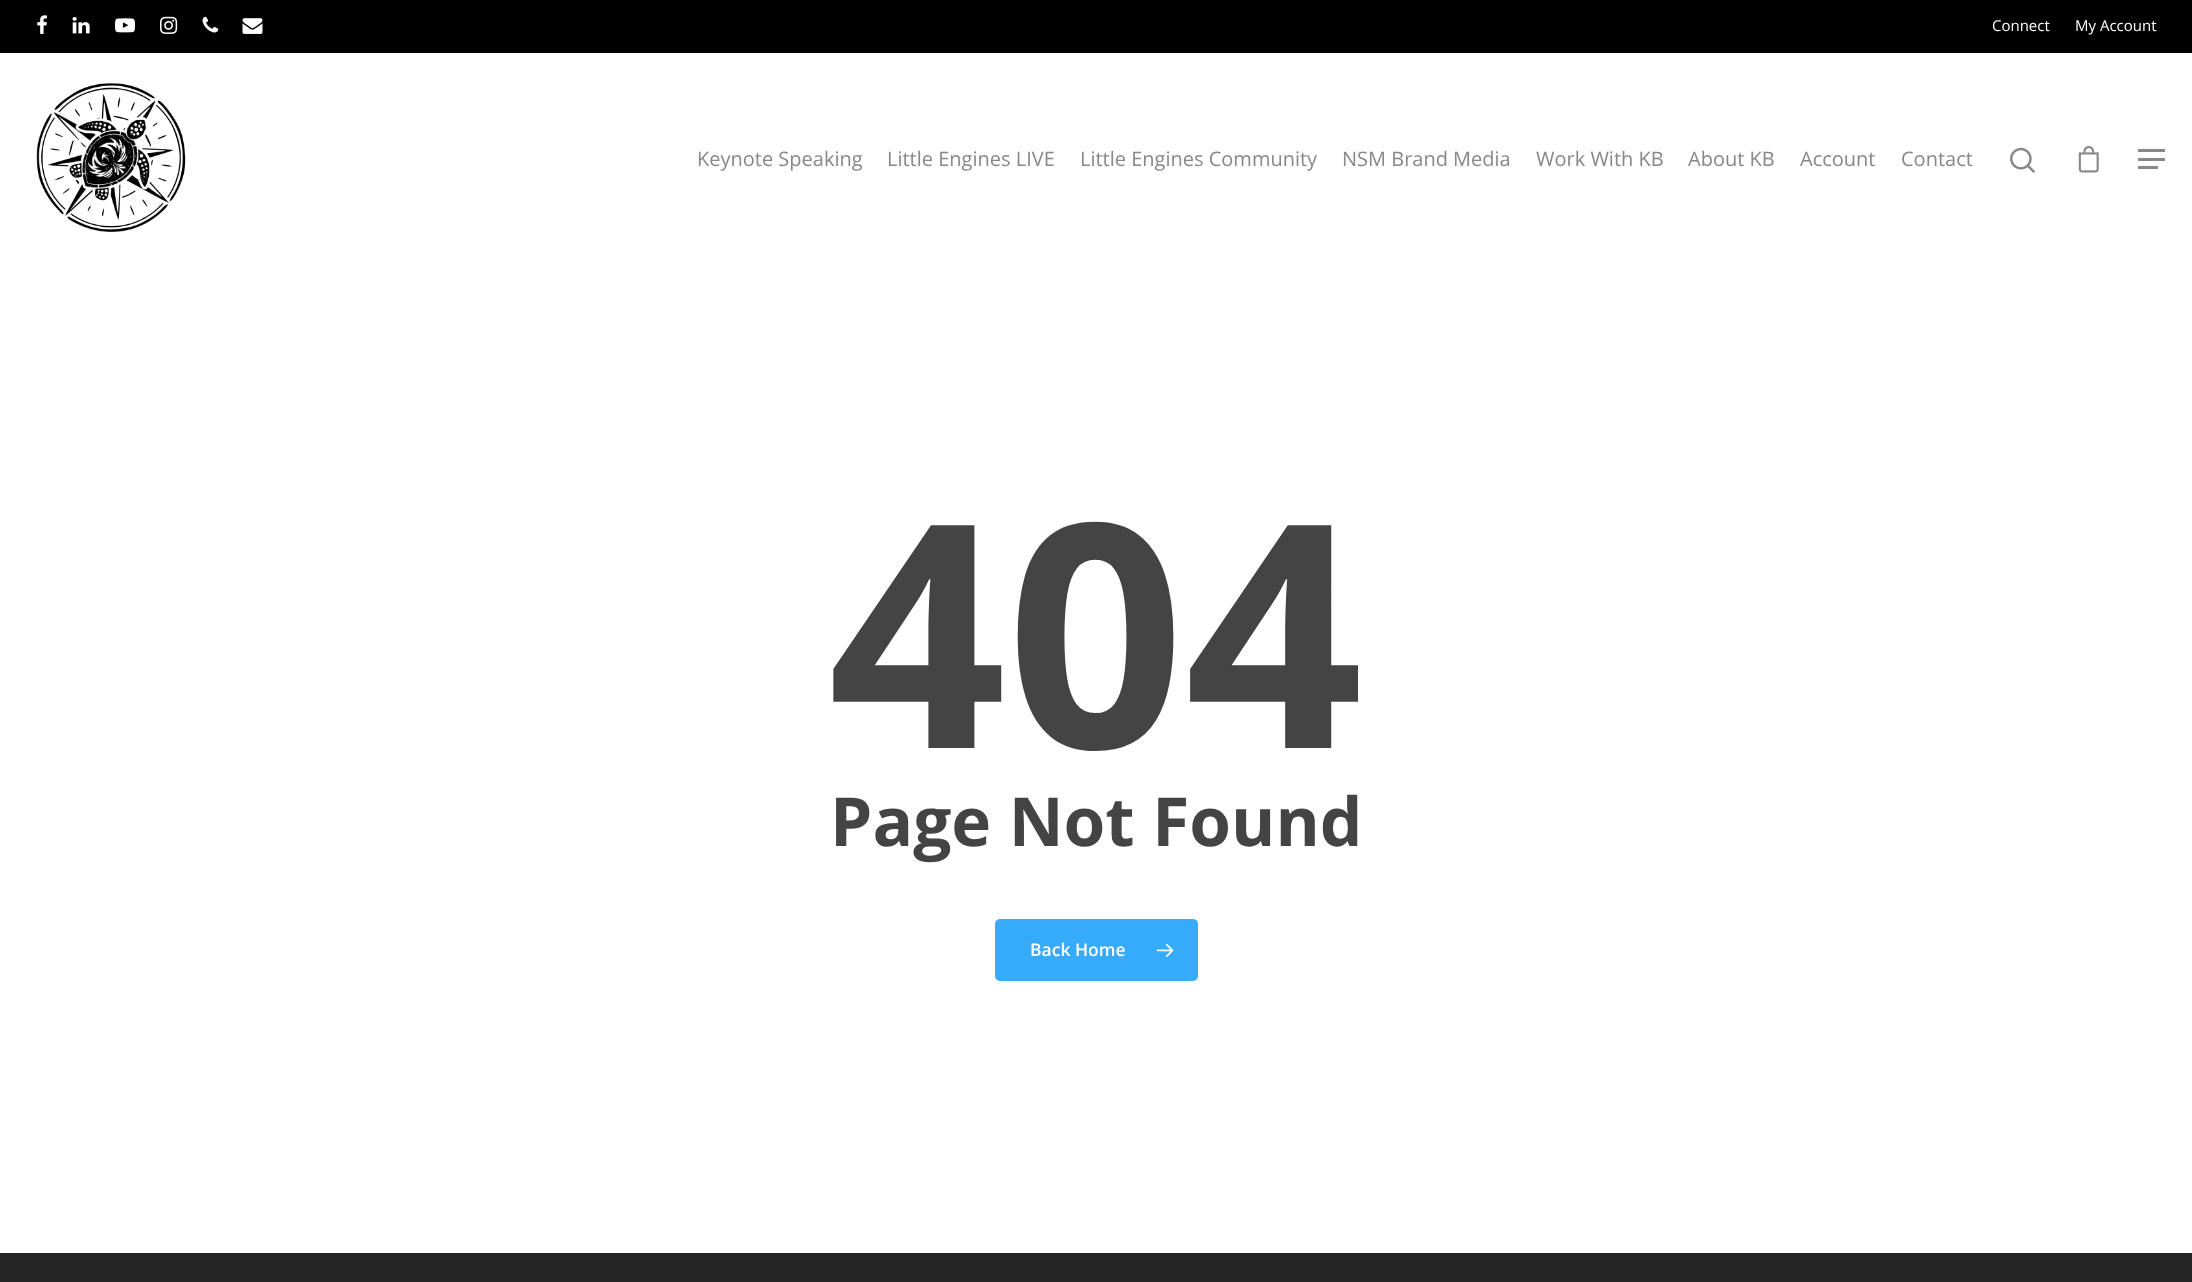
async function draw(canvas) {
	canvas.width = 2192;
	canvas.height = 1282;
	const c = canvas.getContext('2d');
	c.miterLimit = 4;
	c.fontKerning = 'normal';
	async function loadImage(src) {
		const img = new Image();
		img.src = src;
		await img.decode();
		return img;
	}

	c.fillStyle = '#fff';
	c.fillRect(0, 0, 2192, 1282);
	c.fillStyle = '#000';
	c.fillRect(0, 0, 2192, 53);
	c.drawImage(await loadImage('img1.png'), 37, 15, 10, 19);
	c.drawImage(await loadImage('img2.png'), 72, 17, 18, 17);
	c.drawImage(await loadImage('img3.png'), 115, 18, 20, 15);
	c.drawImage(await loadImage('img4.png'), 160, 16, 18, 18);
	c.drawImage(await loadImage('img5.png'), 202, 16, 17, 17);
	c.drawImage(await loadImage('img6.png'), 242, 18, 21, 16);
	c.font = '15px Open Sans';
	c.fillStyle = '#fff';
	c.fillText('Connect', 1992, 31);
	c.fillText('My Account', 2075, 31);
	c.drawImage(await loadImage('img7.png'), 36, 83, 150, 149);
	c.font = '20px Open Sans';
	c.fillStyle = '#888';
	for (const [text, x, y] of [
		['Keynote Speaking', 697, 166],
		['Little Engines LIVE', 887, 166],
		['Little Engines Community', 1080, 166],
		['NSM Brand Media', 1342, 166],
		['Work With KB', 1536, 166],
		['About KB', 1688, 166],
		['Account', 1800, 166],
		['Contact', 1901, 166],
	]) {
		c.fillText(text, x, y);
	}
	c.drawImage(await loadImage('img8.png'), 2010, 147, 25, 26);
	c.drawImage(await loadImage('img9.png'), 2078, 146, 21, 27);
	for (const [x, y, w, h, color] of [
		[2138, 149, 27, 3, '#888'],
		[2138, 166, 20, 3, '#888'],
		[2138, 158, 27, 3, '#888'],
	]) {
		c.fillStyle = color;
		c.fillRect(x, y, w, h);
	}
	c.font = 'bold 312px Open Sans';
	c.fillStyle = '#444';
	c.fillText('404', 828, 748);
	c.font = 'bold 67.5px Open Sans';
	c.fillText('Page Not Found', 830, 846);
	c.fillStyle = '#36abfc';
	c.beginPath();
	c.roundRect(995, 919, 203, 62, 5);
	c.fill();
	c.font = '600 17.5px Open Sans';
	c.fillStyle = '#fff';
	c.fillText('Back Home', 1030, 956);
	c.drawImage(await loadImage('img10.png'), 1156, 943, 18, 14);
	c.fillStyle = '#252525';
	c.fillRect(0, 1253, 2192, 29);
}

draw(document.querySelector('canvas'));
